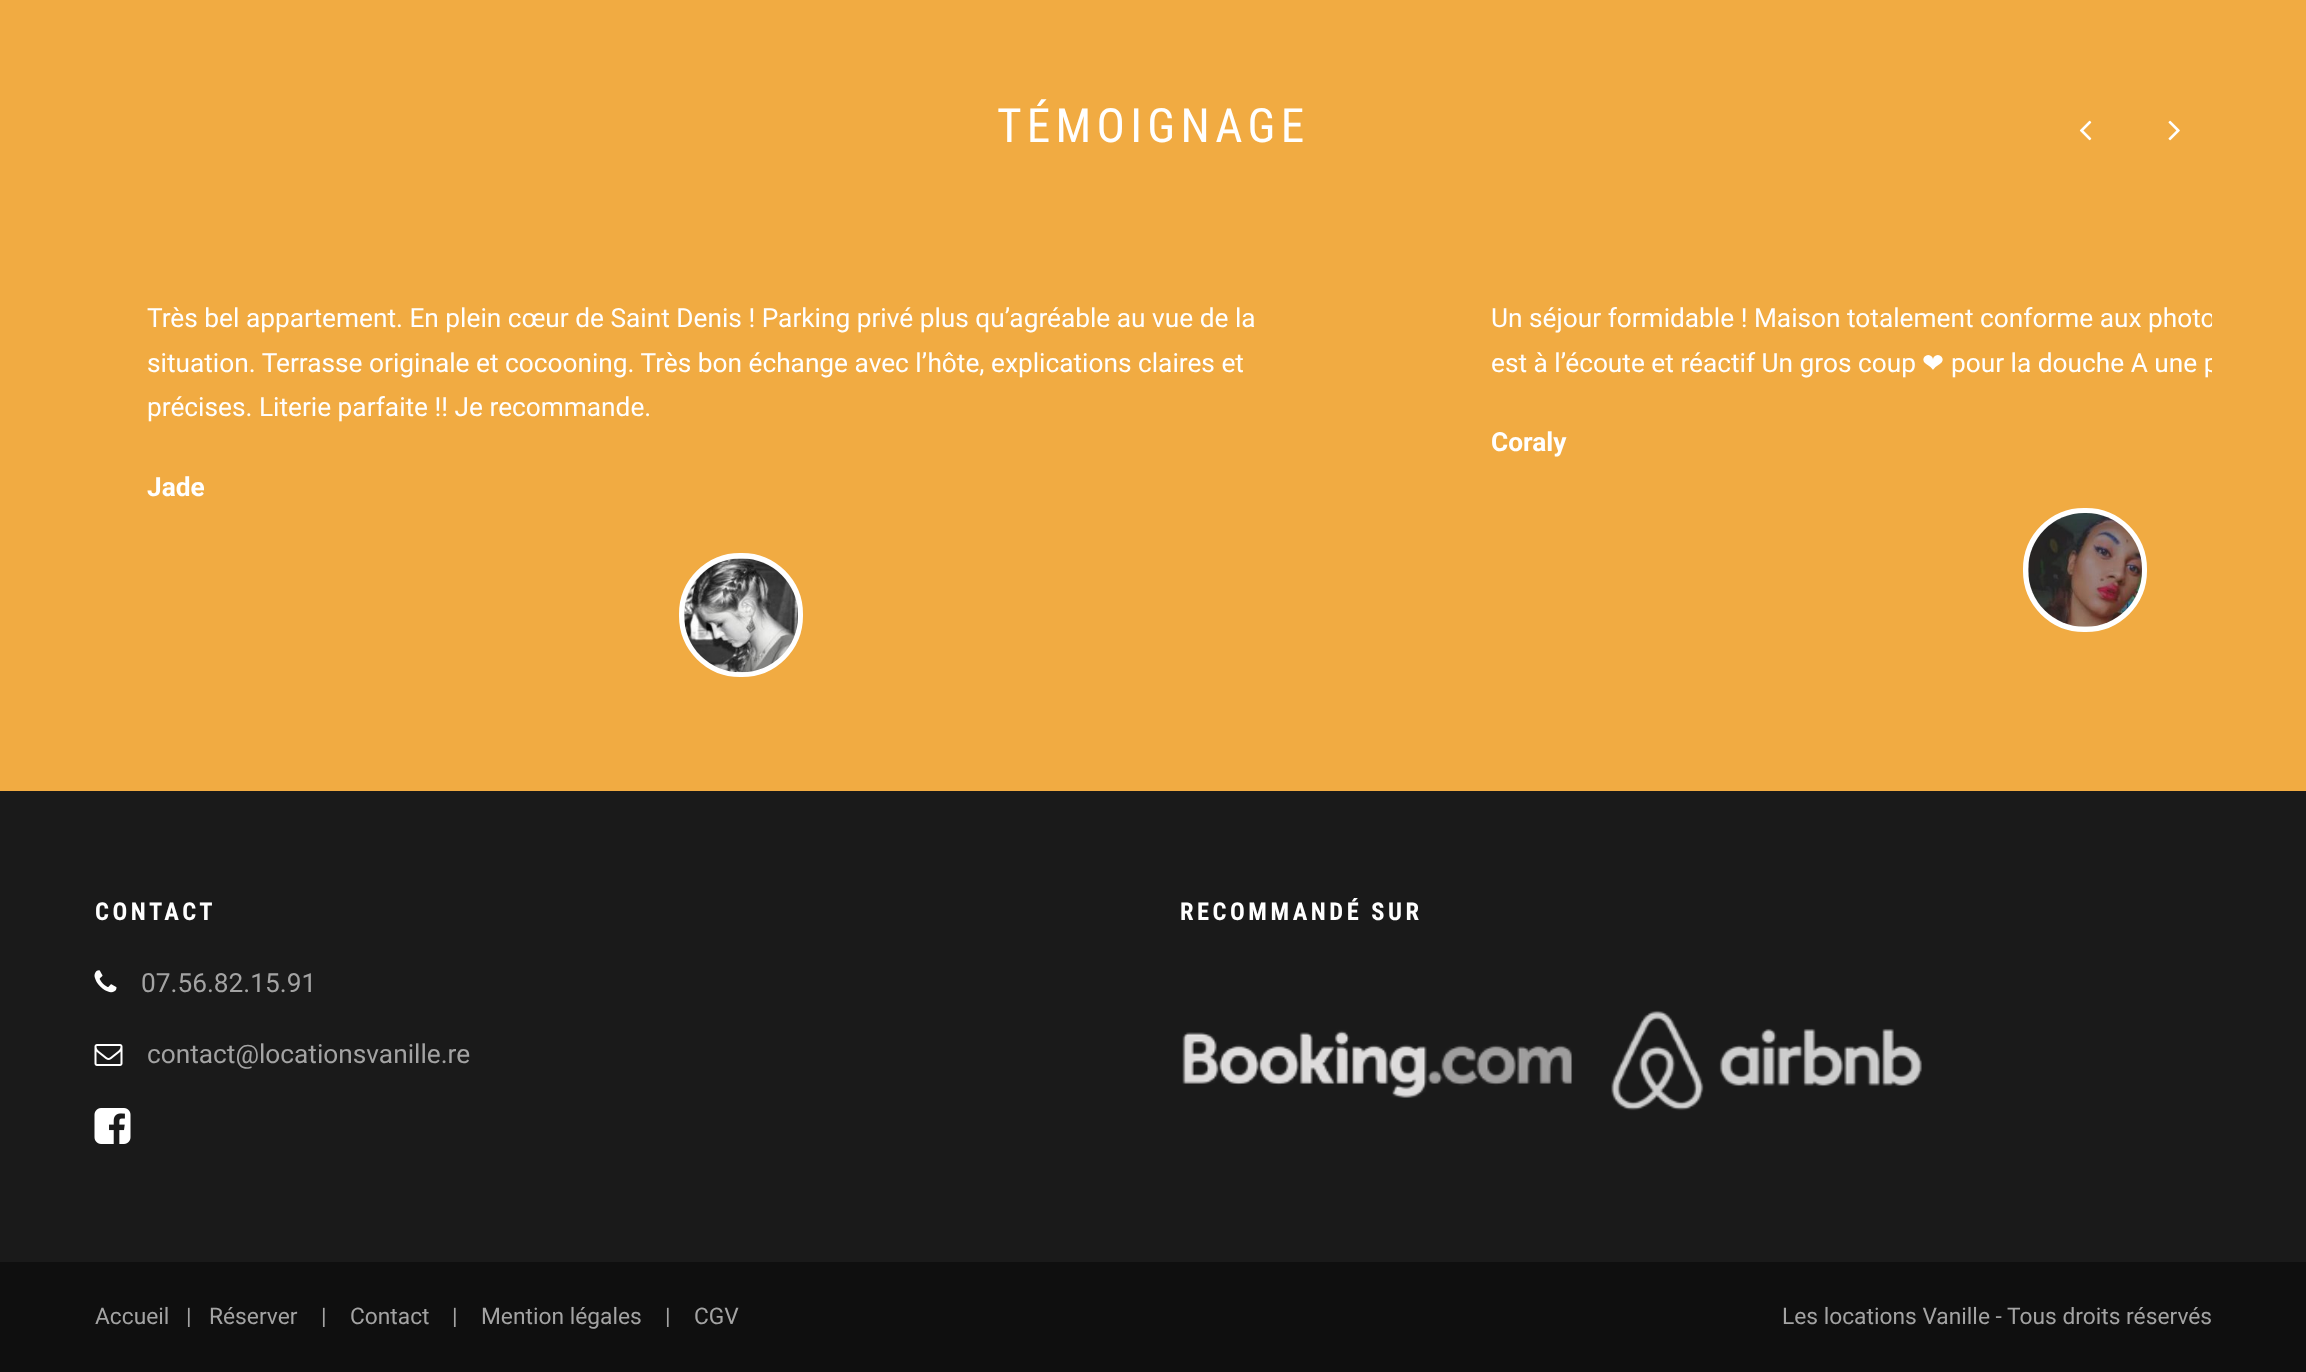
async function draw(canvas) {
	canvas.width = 2306;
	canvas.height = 1372;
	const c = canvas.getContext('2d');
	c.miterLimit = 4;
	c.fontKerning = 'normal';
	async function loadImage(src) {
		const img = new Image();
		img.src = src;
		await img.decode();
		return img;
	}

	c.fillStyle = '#1a1a1a';
	c.fillRect(0, 0, 2306, 1372);
	c.fillStyle = '#f1ab42';
	c.fillRect(0, 0, 2306, 791);
	c.letterSpacing = '5.25px';
	c.font = '47.25px Roboto Condensed';
	c.fillStyle = '#fff';
	c.fillText('TÉMOIGNAGE', 997, 142);
	c.drawImage(await loadImage('img1.png'), 2079, 120, 13, 21);
	c.drawImage(await loadImage('img2.png'), 2168, 120, 12, 21);
	c.letterSpacing = '0px';
	c.font = '26.25px Roboto';
	for (const [text, x, y] of [
		['Très bel appartement. En plein cœur de Saint Denis ! Parking privé plus qu’agréable au vue de la', 147, 327],
		['situation. Terrasse originale et cocooning. Très bon échange avec l’hôte, explications claires et', 147, 372],
		['précises. Literie parfaite !! Je recommande.', 147, 416],
	]) {
		c.fillText(text, x, y);
	}
	c.font = 'bold 26.25px Roboto';
	c.fillText('Jade', 147, 496);
	c.fillStyle = '#f5f5f5';
	c.beginPath();
	c.roundRect(681.5, 555.5, 119, 119, 58.5);
	c.fill();
	c.strokeStyle = '#fff';
	c.lineWidth = 5;
	c.stroke();
	c.drawImage(await loadImage('img3.png'), 684, 558, 114, 115);
	c.save();
	c.beginPath();
	c.rect(95, 245, 2117, 432);
	c.clip();
	c.font = '26.25px Roboto';
	c.fillStyle = '#fff';
	c.fillText('Un séjour formidable ! Maison totalement conforme aux photo', 1491, 327);
	c.restore();
	c.font = '26.25px Roboto';
	c.fillStyle = '#fff';
	c.fillText('est à l’écoute et réactif Un gros coup', 1491, 372);
	c.font = '26.25px DejaVu Sans';
	c.fillText('❤', 1922, 372);
	c.save();
	c.beginPath();
	c.rect(95, 245, 2117, 432);
	c.clip();
	c.font = '26.25px Roboto';
	c.fillText('pour la douche A une p', 1951, 372);
	c.restore();
	c.font = 'bold 26.25px Roboto';
	c.fillText('Coraly', 1491, 451);
	c.fillStyle = '#f5f5f5';
	c.beginPath();
	c.roundRect(2025.5, 510.5, 119, 119, 58.5);
	c.fill();
	c.stroke();
	c.drawImage(await loadImage('img4.png'), 2028, 513, 114, 114);
	c.letterSpacing = '3.5px';
	c.font = 'bold 24.5px Roboto Condensed';
	c.fillStyle = '#fff';
	c.fillText('CONTACT', 95, 920);
	c.drawImage(await loadImage('img5.png'), 94, 970, 23, 23);
	c.letterSpacing = '0px';
	c.font = '26.25px Roboto';
	c.fillStyle = '#a3a3a3';
	c.fillText('07.56.82.15.91', 141, 992);
	c.drawImage(await loadImage('img6.png'), 94, 1044, 29, 22);
	c.fillText('contact@locationsvanille.re', 147, 1063);
	c.drawImage(await loadImage('img7.png'), 94, 1108, 37, 36);
	c.letterSpacing = '3.5px';
	c.font = 'bold 24.5px Roboto Condensed';
	c.fillStyle = '#fff';
	c.fillText('RECOMMANDÉ SUR', 1180, 920);
	c.drawImage(await loadImage('img8.png'), 1182, 1010, 740, 101);
	c.fillStyle = '#0f0f0f';
	c.fillRect(0, 1262, 2306, 110);
	c.letterSpacing = '0px';
	c.font = '22.75px Roboto';
	c.fillStyle = '#a3a3a3';
	for (const [text, x, y] of [
		['Accueil', 95, 1324],
		['|', 186, 1324],
		['Réserver', 209, 1324],
		['|', 321, 1324],
		['Contact', 350, 1324],
		['|', 452, 1324],
		['Mention légales', 481, 1324],
		['|', 665, 1324],
		['CGV', 694, 1324],
		['Les locations Vanille - Tous droits réservés', 1782, 1324],
	]) {
		c.fillText(text, x, y);
	}
}

draw(document.querySelector('canvas'));
